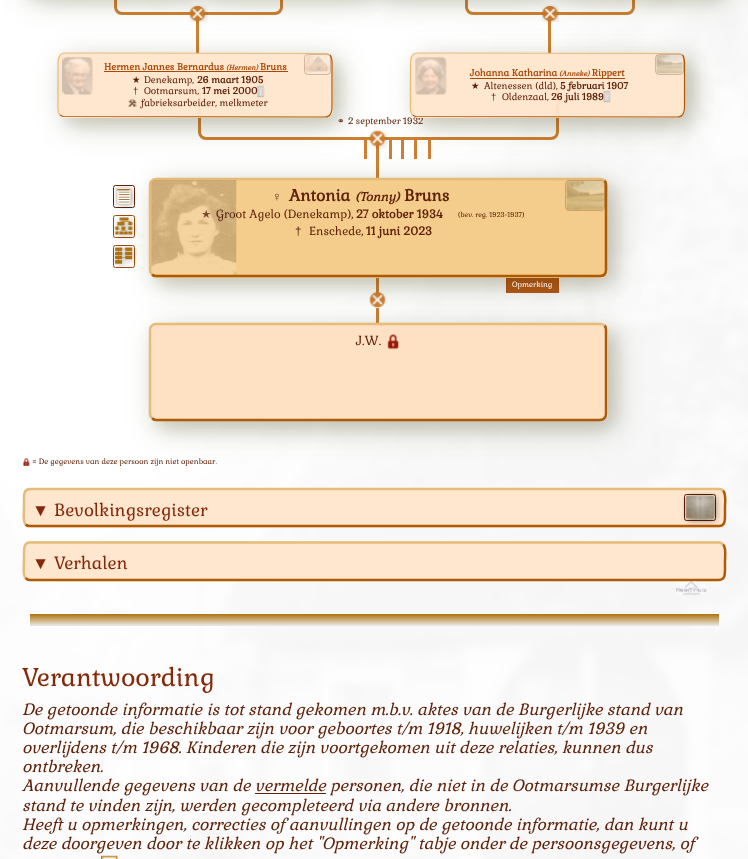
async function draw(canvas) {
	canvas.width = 748;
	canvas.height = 859;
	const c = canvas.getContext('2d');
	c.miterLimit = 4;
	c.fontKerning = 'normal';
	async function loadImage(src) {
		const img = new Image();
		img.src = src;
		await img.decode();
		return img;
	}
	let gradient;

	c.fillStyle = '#fff';
	c.fillRect(0, 0, 748, 859);
	c.drawImage(await loadImage('img1.png'), 0, 0, 748, 859);
	c.beginPath();
	c.roundRect(115.5, -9.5, 166, 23, 6.5);
	c.strokeStyle = '#ce8033';
	c.lineWidth = 3;
	c.stroke();
	c.fillStyle = '#ce8033';
	c.fillRect(196, 15, 3, 38);
	c.drawImage(await loadImage('img2.png'), 189, 4, 19, 18);
	c.beginPath();
	c.roundRect(466.5, -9.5, 167, 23, 6.5);
	c.strokeStyle = '#cc7b2af5';
	c.stroke();
	c.fillStyle = '#ce8032';
	c.fillRect(548, 15, 3, 38);
	c.drawImage(await loadImage('img3.png'), 541, 4, 18, 18);
	c.fillStyle = '#3232003b';
	c.filter = 'blur(15px)';
	c.beginPath();
	c.roundRect(30, -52, 170, 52, 8);
	c.fill();
	c.filter = 'none';
	c.fillStyle = '#3232001f';
	c.filter = 'blur(7.5px)';
	c.beginPath();
	c.roundRect(30, -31, 170, 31, 8);
	c.fill();
	c.filter = 'none';
	c.fillStyle = '#3232003b';
	c.filter = 'blur(15px)';
	c.beginPath();
	c.roundRect(206, -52, 169, 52, 8);
	c.fill();
	c.filter = 'none';
	c.fillStyle = '#3232001f';
	c.filter = 'blur(7.5px)';
	c.beginPath();
	c.roundRect(206, -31, 169, 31, 8);
	c.fill();
	c.filter = 'none';
	c.fillStyle = '#3232003b';
	c.filter = 'blur(15px)';
	c.beginPath();
	c.roundRect(381, -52, 170, 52, 8);
	c.fill();
	c.filter = 'none';
	c.fillStyle = '#3232001f';
	c.filter = 'blur(7.5px)';
	c.beginPath();
	c.roundRect(381, -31, 170, 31, 8);
	c.fill();
	c.filter = 'none';
	c.fillStyle = '#3232003b';
	c.filter = 'blur(15px)';
	c.beginPath();
	c.roundRect(558, -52, 170, 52, 8);
	c.fill();
	c.filter = 'none';
	c.fillStyle = '#3232001f';
	c.filter = 'blur(7.5px)';
	c.beginPath();
	c.roundRect(558, -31, 170, 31, 8);
	c.fill();
	c.filter = 'none';
	c.save();
	c.beginPath();
	c.rect(198, 88, 361, 90);
	c.clip();
	c.beginPath();
	c.roundRect(199.5, 66.5, 358, 72, 6.5);
	c.stroke();
	c.restore();
	c.fillStyle = '#ce8032';
	c.fillRect(376, 140, 3, 38);
	c.drawImage(await loadImage('img11.png'), 369, 130, 19, 19);
	c.fillRect(364, 140, 3, 19);
	c.save();
	c.beginPath();
	c.moveTo(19, 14);
	c.lineTo(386, 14);
	c.lineTo(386, 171);
	c.lineTo(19, 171);
	c.closePath();
	c.moveTo(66, 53);
	c.lineTo(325, 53);
	c.bezierCurveTo(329.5, 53, 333, 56.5, 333, 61);
	c.lineTo(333, 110);
	c.bezierCurveTo(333, 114.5, 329.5, 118, 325, 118);
	c.lineTo(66, 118);
	c.bezierCurveTo(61.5, 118, 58, 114.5, 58, 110);
	c.lineTo(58, 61);
	c.bezierCurveTo(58, 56.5, 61.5, 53, 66, 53);
	c.closePath();
	c.clip('evenodd');
	c.fillStyle = '#3232003b';
	c.filter = 'blur(15px)';
	c.beginPath();
	c.roundRect(65, 60, 275, 65, 8);
	c.fill();
	c.filter = 'none';
	c.restore();
	c.save();
	c.beginPath();
	c.moveTo(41, 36);
	c.lineTo(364, 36);
	c.lineTo(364, 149);
	c.lineTo(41, 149);
	c.closePath();
	c.moveTo(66, 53);
	c.lineTo(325, 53);
	c.bezierCurveTo(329.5, 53, 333, 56.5, 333, 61);
	c.lineTo(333, 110);
	c.bezierCurveTo(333, 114.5, 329.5, 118, 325, 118);
	c.lineTo(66, 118);
	c.bezierCurveTo(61.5, 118, 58, 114.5, 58, 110);
	c.lineTo(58, 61);
	c.bezierCurveTo(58, 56.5, 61.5, 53, 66, 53);
	c.closePath();
	c.clip('evenodd');
	c.fillStyle = '#3232001f';
	c.filter = 'blur(7.5px)';
	c.beginPath();
	c.roundRect(65, 60, 275, 65, 8);
	c.fill();
	c.filter = 'none';
	c.restore();
	c.fillStyle = '#ffe5ccf5';
	c.beginPath();
	c.roundRect(58, 53, 275, 65, 8);
	c.fill();
	c.beginPath();
	c.moveTo(330, 55);
	c.bezierCurveTo(333, 58.5, 332, 64.5, 332, 68.5);
	c.lineTo(332, 101.5);
	c.bezierCurveTo(332, 107, 333, 117, 325, 117);
	c.lineTo(63, 116.5);
	c.lineTo(60, 115);
	c.strokeStyle = '#aa5500f5';
	c.lineWidth = 1.2;
	c.stroke();
	c.beginPath();
	c.moveTo(60, 115);
	c.bezierCurveTo(57, 111.5, 58, 105.5, 58, 101.5);
	c.lineTo(58, 68.5);
	c.bezierCurveTo(58, 63, 57, 53, 65, 53);
	c.lineTo(327, 53.5);
	c.lineTo(330, 55);
	c.strokeStyle = '#e4ba76f5';
	c.stroke();
	c.drawImage(await loadImage('img4.png'), 62, 57, 31, 38);
	c.font = 'bold 9.4px Gabriela';
	c.fillStyle = '#a94908';
	c.fillText('Hermen Jannes Bernardus', 104, 70);
	c.font = 'italic bold 7px Gabriela';
	c.fillText('(Hermen)', 226, 70);
	c.fillRect(104, 71, 122, 1);
	c.fillStyle = '#a8490a';
	c.fillRect(226, 71, 62, 1);
	c.font = 'bold 9.4px Gabriela';
	c.fillStyle = '#a94908';
	c.fillText('Bruns', 260, 70);
	c.beginPath();
	c.roundRect(304.5, 54.5, 26, 20, 3.5);
	c.strokeStyle = '#591a003d';
	c.lineWidth = 1;
	c.stroke();
	c.drawImage(await loadImage('img5.png'), 305, 54, 25, 19);
	c.font = '9.4px DejaVu Sans';
	c.fillStyle = '#60230a';
	c.fillText('★', 132, 83);
	c.font = '9.4px Gabriela';
	c.fillText('Denekamp,', 144, 83);
	c.font = 'bold 9.4px Gabriela';
	c.fillText('26 maart 1905', 197, 83);
	c.font = '9.4px Liberation Sans';
	c.fillText('†', 133, 94);
	c.font = '9.4px Gabriela';
	c.fillText('Ootmarsum,', 144, 94);
	c.font = 'bold 9.4px Gabriela';
	c.fillText('17 mei 2000', 202, 94);
	c.drawImage(await loadImage('img6.png'), 257, 85, 8, 13);
	c.drawImage(await loadImage('img7.png'), 128, 99, 9, 8);
	c.font = '9.4px Gabriela';
	c.fillText('fabrieksarbeider, melkmeter', 141, 106);
	for (const [x, y, w, h, color] of [
		[389, 140, 3, 19, '#ce8032'],
		[401, 140, 3, 19, '#ce8032'],
		[414, 140, 3, 19, '#ce8032'],
		[428, 140, 3, 19, '#ce8033'],
	]) {
		c.fillStyle = color;
		c.fillRect(x, y, w, h);
	}
	c.save();
	c.beginPath();
	c.moveTo(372, 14);
	c.lineTo(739, 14);
	c.lineTo(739, 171);
	c.lineTo(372, 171);
	c.closePath();
	c.moveTo(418, 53);
	c.lineTo(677, 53);
	c.bezierCurveTo(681.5, 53, 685, 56.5, 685, 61);
	c.lineTo(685, 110);
	c.bezierCurveTo(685, 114.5, 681.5, 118, 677, 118);
	c.lineTo(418, 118);
	c.bezierCurveTo(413.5, 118, 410, 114.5, 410, 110);
	c.lineTo(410, 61);
	c.bezierCurveTo(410, 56.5, 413.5, 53, 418, 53);
	c.closePath();
	c.clip('evenodd');
	c.fillStyle = '#3232003b';
	c.filter = 'blur(15px)';
	c.beginPath();
	c.roundRect(418, 60, 275, 65, 8);
	c.fill();
	c.filter = 'none';
	c.restore();
	c.save();
	c.beginPath();
	c.moveTo(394, 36);
	c.lineTo(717, 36);
	c.lineTo(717, 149);
	c.lineTo(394, 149);
	c.closePath();
	c.moveTo(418, 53);
	c.lineTo(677, 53);
	c.bezierCurveTo(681.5, 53, 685, 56.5, 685, 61);
	c.lineTo(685, 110);
	c.bezierCurveTo(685, 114.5, 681.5, 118, 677, 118);
	c.lineTo(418, 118);
	c.bezierCurveTo(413.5, 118, 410, 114.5, 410, 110);
	c.lineTo(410, 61);
	c.bezierCurveTo(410, 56.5, 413.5, 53, 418, 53);
	c.closePath();
	c.clip('evenodd');
	c.fillStyle = '#3232001f';
	c.filter = 'blur(7.5px)';
	c.beginPath();
	c.roundRect(418, 60, 275, 65, 8);
	c.fill();
	c.filter = 'none';
	c.restore();
	c.font = '9px Gabriela';
	c.fillStyle = '#60230a';
	c.fillText('2 september 1932', 348, 124);
	c.fillStyle = '#ffe5ccf5';
	c.beginPath();
	c.roundRect(410, 53, 275, 65, 8);
	c.fill();
	c.beginPath();
	c.moveTo(682.5, 55);
	c.bezierCurveTo(685.5, 58.5, 684.5, 64.5, 684.5, 68.5);
	c.lineTo(684.5, 101.5);
	c.bezierCurveTo(684.5, 107, 685.5, 117, 677.5, 117);
	c.lineTo(415.5, 116.5);
	c.lineTo(412.5, 115);
	c.strokeStyle = '#aa5500f5';
	c.lineWidth = 1.2;
	c.stroke();
	c.beginPath();
	c.moveTo(412.5, 115);
	c.bezierCurveTo(409.5, 111.5, 410.5, 105.5, 410.5, 101.5);
	c.lineTo(410.5, 68.5);
	c.bezierCurveTo(410.5, 63, 409.5, 53, 417.5, 53);
	c.lineTo(679.5, 53.5);
	c.lineTo(682.5, 55);
	c.strokeStyle = '#e4ba76f5';
	c.stroke();
	c.drawImage(await loadImage('img8.png'), 415, 57, 32, 38);
	c.font = 'bold 9.4px Gabriela';
	c.fillStyle = '#a94908';
	c.fillText('Johanna Katharina', 470, 76);
	c.font = 'italic bold 7px Gabriela';
	c.fillText('(Anneke)', 559, 76);
	c.fillRect(470, 78, 155, 1);
	c.font = 'bold 9.4px Gabriela';
	c.fillText('Rippert', 592, 76);
	c.beginPath();
	c.roundRect(655.5, 54.5, 28, 20, 3.5);
	c.strokeStyle = '#591a003d';
	c.lineWidth = 1;
	c.stroke();
	c.drawImage(await loadImage('img9.png'), 656, 54, 27, 20);
	c.font = '9.4px DejaVu Sans';
	c.fillStyle = '#60230a';
	c.fillText('★', 471, 89);
	c.font = '9.4px Gabriela';
	c.fillText('Altenessen (dld),', 484, 89);
	c.font = 'bold 9.4px Gabriela';
	c.fillText('5 februari 1907', 560, 89);
	c.font = '9.4px Liberation Sans';
	c.fillText('†', 491, 100);
	c.font = '9.4px Gabriela';
	c.fillText('Oldenzaal,', 502, 100);
	c.font = 'bold 9.4px Gabriela';
	c.fillText('26 juli 1989', 551, 100);
	c.drawImage(await loadImage('img10.png'), 603, 90, 8, 13);
	c.font = '9px DejaVu Sans';
	c.fillText('⚭', 337, 124);
	c.beginPath();
	c.roundRect(113.5, 185.5, 21, 22, 2);
	c.strokeStyle = '#60230a';
	c.stroke();
	c.drawImage(await loadImage('img12.png'), 114, 185, 23, 25);
	c.beginPath();
	c.roundRect(113.5, 215.5, 21, 22, 2);
	c.strokeStyle = '#a8490a';
	c.stroke();
	c.drawImage(await loadImage('img13.png'), 113, 215, 24, 25);
	c.beginPath();
	c.roundRect(113.5, 245.5, 21, 22, 2);
	c.stroke();
	c.drawImage(await loadImage('img14.png'), 112, 245, 25, 22);
	c.fillStyle = '#cd8032';
	c.fillRect(376, 278, 3, 15);
	c.fillStyle = '#b85817';
	c.fillRect(507, 278, 51, 15);
	c.save();
	c.beginPath();
	c.rect(198, 278, 361, 15);
	c.clip();
	c.beginPath();
	c.roundRect(506.5, 271.5, 52, 27, [0, 0, 4.5, 4.5]);
	c.strokeStyle = '#b5510e';
	c.stroke();
	c.restore();
	c.drawImage(await loadImage('img17.png'), 369, 292, 17, 16);
	c.fillStyle = '#ce8032';
	c.fillRect(376, 308, 3, 15);
	c.save();
	c.beginPath();
	c.moveTo(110, 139);
	c.lineTo(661, 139);
	c.lineTo(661, 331);
	c.lineTo(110, 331);
	c.closePath();
	c.moveTo(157, 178);
	c.lineTo(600, 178);
	c.bezierCurveTo(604.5, 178, 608, 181.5, 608, 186);
	c.lineTo(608, 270);
	c.bezierCurveTo(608, 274.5, 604.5, 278, 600, 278);
	c.lineTo(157, 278);
	c.bezierCurveTo(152.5, 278, 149, 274.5, 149, 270);
	c.lineTo(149, 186);
	c.bezierCurveTo(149, 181.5, 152.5, 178, 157, 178);
	c.closePath();
	c.clip('evenodd');
	c.fillStyle = '#3232003b';
	c.filter = 'blur(15px)';
	c.beginPath();
	c.roundRect(156, 185, 459, 100, 8);
	c.fill();
	c.filter = 'none';
	c.restore();
	c.save();
	c.beginPath();
	c.moveTo(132, 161);
	c.lineTo(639, 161);
	c.lineTo(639, 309);
	c.lineTo(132, 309);
	c.closePath();
	c.moveTo(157, 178);
	c.lineTo(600, 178);
	c.bezierCurveTo(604.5, 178, 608, 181.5, 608, 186);
	c.lineTo(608, 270);
	c.bezierCurveTo(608, 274.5, 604.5, 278, 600, 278);
	c.lineTo(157, 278);
	c.bezierCurveTo(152.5, 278, 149, 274.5, 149, 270);
	c.lineTo(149, 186);
	c.bezierCurveTo(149, 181.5, 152.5, 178, 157, 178);
	c.closePath();
	c.clip('evenodd');
	c.fillStyle = '#3232001f';
	c.filter = 'blur(7.5px)';
	c.beginPath();
	c.roundRect(156, 185, 459, 100, 8);
	c.fill();
	c.filter = 'none';
	c.restore();
	c.fillStyle = '#f4ca86f5';
	c.beginPath();
	c.roundRect(149, 178, 459, 100, 8);
	c.fill();
	c.beginPath();
	c.moveTo(604.5, 180.5);
	c.bezierCurveTo(605.5, 181.5, 606, 183.5, 606, 185);
	c.lineTo(606, 270);
	c.bezierCurveTo(606, 271.5, 605.5, 273.5, 604.5, 274.5);
	c.bezierCurveTo(603.5, 275.5, 601.5, 276, 600, 276);
	c.lineTo(156, 276);
	c.bezierCurveTo(154.5, 276, 153, 275.5, 152, 274.5);
	c.strokeStyle = '#aa5500f5';
	c.lineWidth = 2.5;
	c.stroke();
	c.beginPath();
	c.moveTo(152, 274.5);
	c.bezierCurveTo(150.5, 273.5, 150, 271.5, 150, 270);
	c.lineTo(150, 185);
	c.bezierCurveTo(150, 183.5, 150.5, 181.5, 152, 180.5);
	c.bezierCurveTo(153, 179.5, 154.5, 179, 156, 179);
	c.lineTo(600, 179);
	c.bezierCurveTo(601.5, 179, 603.5, 179.5, 604.5, 180.5);
	c.strokeStyle = '#e4ba76f5';
	c.stroke();
	c.font = '11.5px DejaVu Sans';
	c.fillStyle = '#60230a';
	c.fillText('★', 201, 218);
	c.font = '11.5px Gabriela';
	c.fillText('Groot Agelo (Denekamp),', 216, 218);
	c.drawImage(await loadImage('img15.png'), 151, 180, 86, 95);
	c.font = '13px Liberation Sans';
	c.fillText('♀', 272, 201);
	c.font = 'bold 16px Gabriela';
	c.fillText('Antonia', 289, 201);
	c.font = 'italic bold 12px Gabriela';
	c.fillText('(Tonny)', 355, 201);
	c.font = 'bold 16px Gabriela';
	c.fillText('Bruns', 404, 201);
	c.font = 'bold 11.5px Gabriela';
	c.fillText('27 oktober 1934', 356, 218);
	c.font = '6.9px Gabriela';
	c.fillText('(bev. reg. 1923-1937)', 458, 217);
	c.font = '11.5px Liberation Sans';
	c.fillText('†', 295, 235);
	c.font = '11.5px Gabriela';
	c.fillText('Enschede,', 309, 235);
	c.font = 'bold 11.5px Gabriela';
	c.fillText('11 juni 2023', 366, 235);
	c.fillStyle = '#591a003d';
	c.beginPath();
	c.moveTo(569, 180);
	c.bezierCurveTo(567, 180, 565, 182, 565, 184);
	c.lineTo(565, 207);
	c.bezierCurveTo(565, 209, 567, 211, 569, 211);
	c.lineTo(601, 211);
	c.bezierCurveTo(603, 211, 605, 209, 605, 207);
	c.lineTo(605, 185);
	c.bezierCurveTo(605, 182, 603, 180, 600, 180);
	c.closePath();
	c.moveTo(569, 181);
	c.bezierCurveTo(567, 181, 566, 182, 566, 184);
	c.lineTo(566, 207);
	c.bezierCurveTo(566, 209, 567, 210, 569, 210);
	c.lineTo(601, 210);
	c.bezierCurveTo(603, 210, 604, 209, 604, 207);
	c.lineTo(604, 184);
	c.bezierCurveTo(604, 182, 603, 181, 601, 181);
	c.closePath();
	c.fill('evenodd');
	c.drawImage(await loadImage('img16.png'), 566, 180, 38, 30);
	c.font = '7.5px Gabriela';
	c.fillStyle = '#fcf8f6';
	c.fillText('Opmerking', 512, 287);
	c.save();
	c.beginPath();
	c.moveTo(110, 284);
	c.lineTo(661, 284);
	c.lineTo(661, 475);
	c.lineTo(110, 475);
	c.closePath();
	c.moveTo(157, 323);
	c.lineTo(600, 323);
	c.bezierCurveTo(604.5, 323, 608, 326.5, 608, 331);
	c.lineTo(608, 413);
	c.bezierCurveTo(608, 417.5, 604.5, 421, 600, 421);
	c.lineTo(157, 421);
	c.bezierCurveTo(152.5, 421, 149, 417.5, 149, 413);
	c.lineTo(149, 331);
	c.bezierCurveTo(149, 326.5, 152.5, 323, 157, 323);
	c.closePath();
	c.clip('evenodd');
	c.fillStyle = '#3232003b';
	c.filter = 'blur(15px)';
	c.beginPath();
	c.roundRect(156, 330, 459, 99, 8);
	c.fill();
	c.filter = 'none';
	c.restore();
	c.save();
	c.beginPath();
	c.moveTo(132, 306);
	c.lineTo(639, 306);
	c.lineTo(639, 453);
	c.lineTo(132, 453);
	c.closePath();
	c.moveTo(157, 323);
	c.lineTo(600, 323);
	c.bezierCurveTo(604.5, 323, 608, 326.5, 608, 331);
	c.lineTo(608, 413);
	c.bezierCurveTo(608, 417.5, 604.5, 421, 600, 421);
	c.lineTo(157, 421);
	c.bezierCurveTo(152.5, 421, 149, 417.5, 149, 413);
	c.lineTo(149, 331);
	c.bezierCurveTo(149, 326.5, 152.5, 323, 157, 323);
	c.closePath();
	c.clip('evenodd');
	c.fillStyle = '#3232001f';
	c.filter = 'blur(7.5px)';
	c.beginPath();
	c.roundRect(156, 330, 459, 99, 8);
	c.fill();
	c.filter = 'none';
	c.restore();
	c.fillStyle = '#fee0c0f5';
	c.beginPath();
	c.roundRect(149, 323, 459, 98, 8);
	c.fill();
	c.beginPath();
	c.moveTo(604.5, 325.5);
	c.bezierCurveTo(605.5, 326.5, 606, 328.5, 606, 330);
	c.lineTo(606, 414);
	c.bezierCurveTo(606, 415.5, 605.5, 417, 604.5, 418);
	c.bezierCurveTo(603.5, 419.5, 601.5, 420, 600, 420);
	c.lineTo(156, 420);
	c.bezierCurveTo(154.5, 420, 153, 419.5, 152, 418);
	c.strokeStyle = '#aa5500f5';
	c.stroke();
	c.beginPath();
	c.moveTo(152, 418);
	c.bezierCurveTo(150.5, 417, 150, 415.5, 150, 414);
	c.lineTo(150, 330);
	c.bezierCurveTo(150, 328.5, 150.5, 326.5, 152, 325.5);
	c.bezierCurveTo(153, 324.5, 154.5, 324, 156, 324);
	c.lineTo(600, 324);
	c.bezierCurveTo(601.5, 324, 603.5, 324.5, 604.5, 325.5);
	c.strokeStyle = '#e4ba76f5';
	c.stroke();
	c.font = '13px Gabriela';
	c.fillStyle = '#60230a';
	c.fillText('J.W.', 356, 345);
	c.drawImage(await loadImage('img18.png'), 387, 334, 12, 16);
	c.drawImage(await loadImage('img19.png'), 23, 458, 7, 8);
	c.font = '7.5px Gabriela';
	c.fillText('= De gegevens van deze persoon zijn niet openbaar.', 32, 464);
	c.fillStyle = '#ffe5ccf5';
	c.beginPath();
	c.roundRect(23, 488, 703, 40, 8);
	c.fill();
	c.beginPath();
	c.moveTo(723, 490.5);
	c.bezierCurveTo(726.5, 494, 725, 503.5, 725, 507.5);
	c.lineTo(725, 516);
	c.bezierCurveTo(725, 520.5, 725, 526, 719, 526);
	c.lineTo(29.5, 526);
	c.bezierCurveTo(28, 526, 26.5, 525.5, 25.5, 524.5);
	c.strokeStyle = '#aa5500f5';
	c.stroke();
	c.beginPath();
	c.moveTo(25.5, 524.5);
	c.bezierCurveTo(22.5, 521, 24, 511.5, 24, 507.5);
	c.lineTo(24, 499);
	c.bezierCurveTo(24, 494.5, 24, 489, 30, 489);
	c.lineTo(719.5, 489);
	c.bezierCurveTo(721, 489, 722, 489.5, 723, 490.5);
	c.strokeStyle = '#e4ba76f5';
	c.stroke();
	c.font = '17.25px Liberation Sans';
	c.fillStyle = '#842a0a';
	c.fillText('▼', 32, 516);
	c.font = '17.25px Gabriela';
	c.fillText('Bevolkingsregister', 54, 516);
	c.beginPath();
	c.roundRect(684.5, 494.5, 31, 26, 2);
	c.strokeStyle = '#602208';
	c.lineWidth = 1;
	c.stroke();
	c.drawImage(await loadImage('img20.png'), 682, 492, 39, 33);
	c.fillStyle = '#ffe5ccf5';
	c.beginPath();
	c.roundRect(23, 541, 703, 40, 8);
	c.fill();
	c.drawImage(await loadImage('img21.png'), 676, 581, 31, 14);
	c.beginPath();
	c.moveTo(723, 544.5);
	c.bezierCurveTo(726.5, 547.5, 725, 557, 725, 561);
	c.lineTo(725, 569.5);
	c.bezierCurveTo(725, 574, 725, 580, 719, 580);
	c.lineTo(29.5, 580);
	c.bezierCurveTo(28, 580, 26.5, 579, 25.5, 578);
	c.strokeStyle = '#aa5500f5';
	c.lineWidth = 2.5;
	c.stroke();
	c.beginPath();
	c.moveTo(25.5, 578);
	c.bezierCurveTo(22.5, 575, 24, 565.5, 24, 561);
	c.lineTo(24, 553);
	c.bezierCurveTo(24, 548.5, 24, 542.5, 30, 542.5);
	c.lineTo(719.5, 542.5);
	c.bezierCurveTo(721, 542.5, 722, 543.5, 723, 544.5);
	c.strokeStyle = '#e4ba76f5';
	c.stroke();
	c.font = '17.25px Liberation Sans';
	c.fillStyle = '#842a0a';
	c.fillText('▼', 32, 569);
	c.font = '17.25px Gabriela';
	c.fillText('Verhalen', 54, 569);
	gradient = c.createLinearGradient(374, 626, 374, 614);
	gradient.addColorStop(0, '#ebebeb');
	gradient.addColorStop(1, '#ad720c');
	c.fillStyle = gradient;
	c.fillRect(30, 614, 689, 12);
	c.font = '25px Gabriela';
	c.fillStyle = '#842a0a';
	c.fillText('Verantwoording', 22, 686);
	c.font = 'italic 16px Gabriela';
	c.fillStyle = '#60230a';
	for (const [text, x, y] of [
		['De getoonde informatie is tot stand gekomen m.b.v. aktes van de Burgerlijke stand van', 22, 715],
		['Ootmarsum, die beschikbaar zijn voor geboortes t/m 1918, huwelijken t/m 1939 en', 22, 734],
		['overlijdens t/m 1968. Kinderen die zijn voortgekomen uit deze relaties, kunnen dus', 22, 753],
		['ontbreken.', 22, 772],
		['Aanvullende gegevens van de vermelde', 22, 791],
		['personen, die niet in de Ootmarsumse Burgerlijke', 330, 791],
	]) {
		c.fillText(text, x, y);
	}
	c.fillStyle = '#591a00f5';
	c.fillRect(255, 793, 71, 1);
	c.fillStyle = '#60230a';
	for (const [text, x, y] of [
		['stand te vinden zijn, werden gecompleteerd via andere bronnen.', 22, 811],
		['Heeft u opmerkingen, correcties of aanvullingen op de getoonde informatie, dan kunt u', 22, 830],
		['deze doorgeven door te klikken op het "Opmerking" tabje onder de persoonsgegevens, of', 22, 849],
	]) {
		c.fillText(text, x, y);
	}
	c.drawImage(await loadImage('img22.png'), 101, 855, 18, 4);
}

draw(document.querySelector('canvas'));
